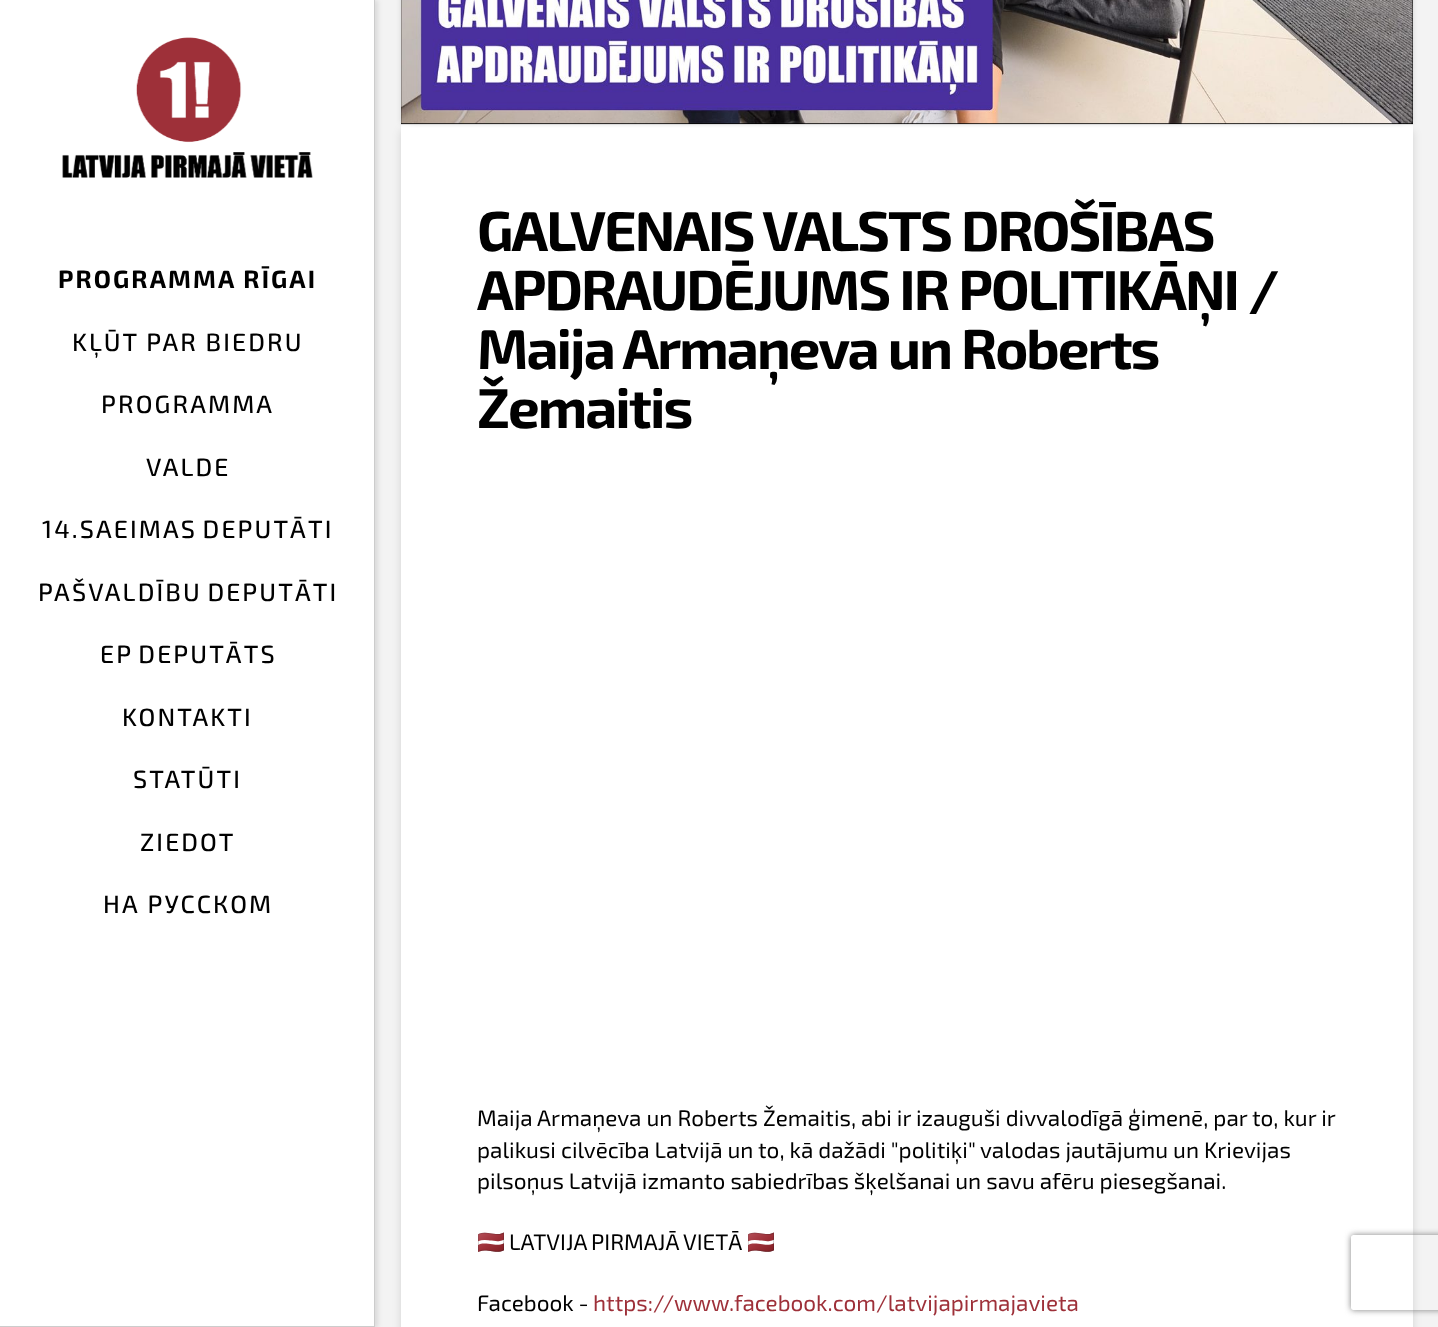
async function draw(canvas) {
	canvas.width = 1438;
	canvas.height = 1327;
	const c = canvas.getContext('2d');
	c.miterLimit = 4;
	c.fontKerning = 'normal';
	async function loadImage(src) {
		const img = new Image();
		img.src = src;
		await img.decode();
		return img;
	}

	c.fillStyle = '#f3f3f3';
	c.fillRect(0, 0, 1438, 1327);
	c.fillStyle = '#0000001a';
	c.filter = 'blur(2.5px)';
	c.beginPath();
	c.rect(3, 0, 375, 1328);
	c.fill();
	c.filter = 'none';
	for (const [x, y, w, h, color] of [
		[0, 0, 374, 1326, '#fff'],
		[374, 0, 1, 1327, '#ccc'],
		[0, 1326, 375, 1, '#ccc'],
	]) {
		c.fillStyle = color;
		c.fillRect(x, y, w, h);
	}
	c.drawImage(await loadImage('img1.png'), 62, 37, 251, 141);
	c.letterSpacing = '2.1px';
	c.font = 'bold 25px "Exo 2"';
	c.fillStyle = '#000';
	c.fillText('PROGRAMMA RĪGAI', 58, 288);
	c.font = '500 25px "Exo 2"';
	for (const [text, x, y] of [
		['KĻŪT PAR BIEDRU', 72, 351],
		['PROGRAMMA', 101, 413],
		['VALDE', 146, 476],
	]) {
		c.fillText(text, x, y);
	}
	c.wordSpacing = '-2px';
	for (const [text, x, y] of [
		['14.SAEIMAS DEPUTĀTI', 42, 538],
		['PAŠVALDĪBU DEPUTĀTI', 38, 601],
		['EP DEPUTĀTS', 100, 663],
	]) {
		c.fillText(text, x, y);
	}
	c.wordSpacing = '0px';
	for (const [text, x, y] of [
		['KONTAKTI', 122, 726],
		['STATŪTI', 133, 788],
		['ZIEDOT', 140, 851],
		['НА РУССКОМ', 103, 913],
	]) {
		c.fillText(text, x, y);
	}
	c.fillStyle = '#00000021';
	c.filter = 'blur(4px)';
	c.beginPath();
	c.roundRect(401, 129, 1012, 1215, 5);
	c.fill();
	c.filter = 'none';
	c.fillStyle = '#fff';
	c.fillRect(401, 125, 1012, 1202);
	c.fillStyle = '#00000021';
	c.filter = 'blur(2.5px)';
	c.beginPath();
	c.rect(401, -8, 1002, 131);
	c.fill();
	c.filter = 'none';
	c.filter = 'blur(2.5px)';
	c.beginPath();
	c.rect(411, -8, 1002, 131);
	c.fill();
	c.filter = 'none';
	c.fillStyle = '#ddd';
	c.fillRect(401, 124, 1012, 1);
	c.fillStyle = '#000';
	c.fillRect(401, 0, 1012, 124);
	c.drawImage(await loadImage('img2.png'), 401, 0, 1012, 124);
	c.letterSpacing = '-2px';
	c.font = 'bold 56.25px "Exo 2"';
	for (const [text, x, y] of [
		['GALVENAIS VALSTS DROŠĪBAS', 477, 251],
		['APDRAUDĒJUMS IR POLITIKĀŅI /', 477, 310],
		['Maija Armaņeva un Roberts', 477, 369],
		['Žemaitis', 477, 428],
	]) {
		c.fillText(text, x, y);
	}
	c.letterSpacing = '0px';
	c.font = '22.5px "Exo 2"';
	for (const [text, x, y] of [
		['Maija Armaņeva un Roberts Žemaitis, abi ir izauguši divvalodīgā ģimenē, par to, kur ir', 477, 1126],
		['palikusi cilvēcība Latvijā un to, kā dažādi "politiķi" valodas jautājumu un Krievijas', 477, 1158],
		['pilsoņus Latvijā izmanto sabiedrības šķelšanai un savu afēru piesegšanai.', 477, 1189],
	]) {
		c.fillText(text, x, y);
	}
	c.font = '22.5px Noto Color Emoji';
	c.fillText('🇱🇻', 477, 1250);
	c.wordSpacing = '-1px';
	c.font = '22.5px "Exo 2"';
	c.fillText('LATVIJA PIRMAJĀ VIETĀ', 509, 1250);
	c.wordSpacing = '0px';
	c.font = '22.5px Noto Color Emoji';
	c.fillText('🇱🇻', 747, 1250);
	c.font = '22.5px "Exo 2"';
	c.fillText('Facebook -', 477, 1311);
	c.fillStyle = '#9e3039';
	c.fillText('https://www.facebook.com/latvijapirmajavieta', 593, 1311);
	c.save();
	c.beginPath();
	c.moveTo(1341, 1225);
	c.lineTo(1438, 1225);
	c.lineTo(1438, 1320);
	c.lineTo(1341, 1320);
	c.closePath();
	c.moveTo(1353.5, 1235);
	c.lineTo(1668.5, 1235);
	c.bezierCurveTo(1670, 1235, 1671, 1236, 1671, 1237.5);
	c.lineTo(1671, 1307.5);
	c.bezierCurveTo(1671, 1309, 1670, 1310, 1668.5, 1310);
	c.lineTo(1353.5, 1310);
	c.bezierCurveTo(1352, 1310, 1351, 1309, 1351, 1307.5);
	c.lineTo(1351, 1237.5);
	c.bezierCurveTo(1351, 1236, 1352, 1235, 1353.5, 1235);
	c.closePath();
	c.clip('evenodd');
	c.fillStyle = '#808080';
	c.filter = 'blur(3px)';
	c.beginPath();
	c.roundRect(1351, 1235, 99, 75, 2.5);
	c.fill();
	c.filter = 'none';
	c.restore();
}

draw(document.querySelector('canvas'));
